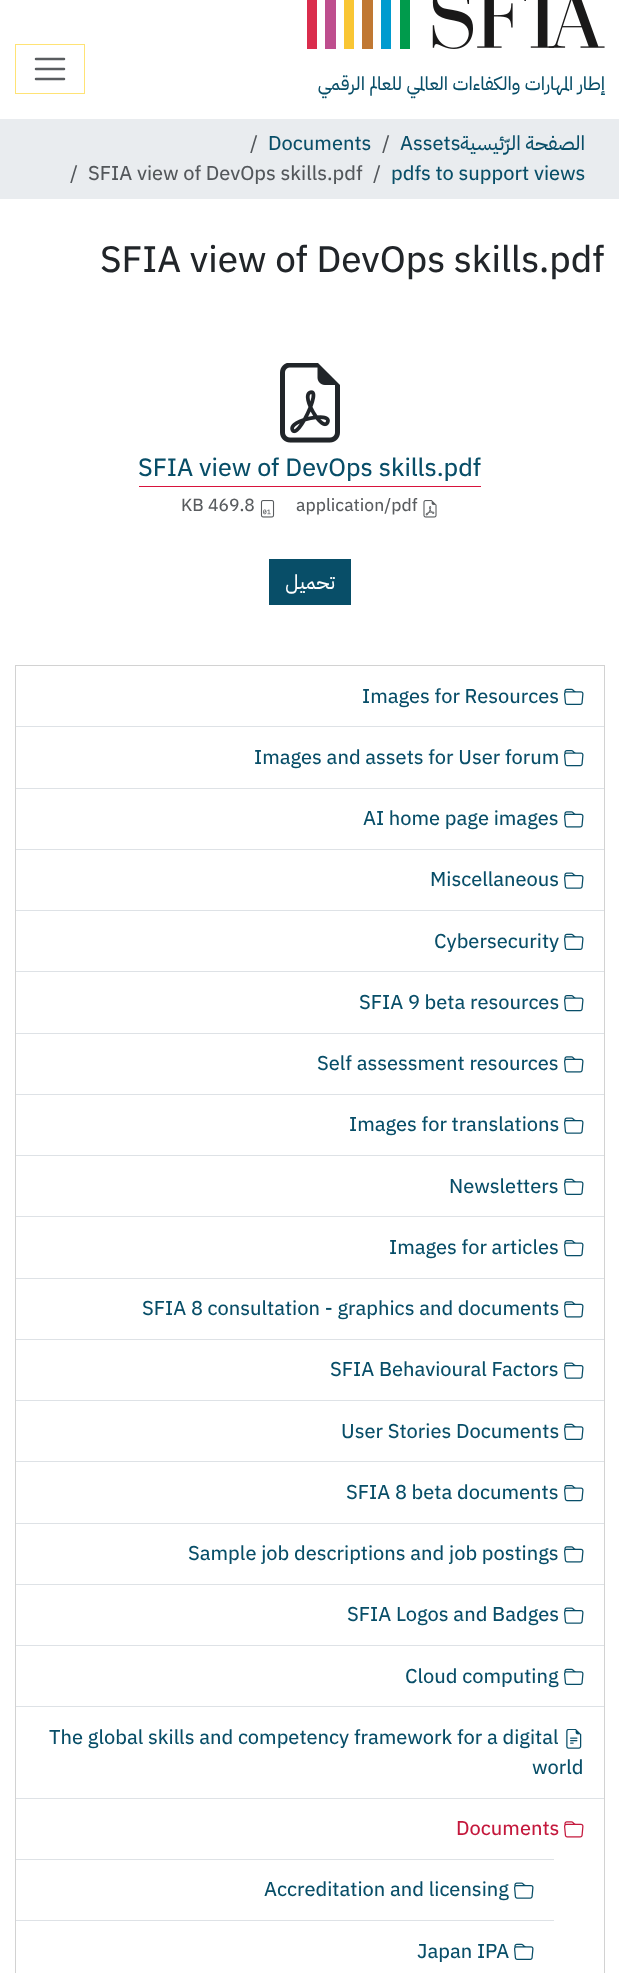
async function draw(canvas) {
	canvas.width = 619;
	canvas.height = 1973;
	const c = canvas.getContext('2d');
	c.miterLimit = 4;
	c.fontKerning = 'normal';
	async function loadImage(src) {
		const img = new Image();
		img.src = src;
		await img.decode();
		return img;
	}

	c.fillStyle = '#fff';
	c.fillRect(0, 0, 619, 1973);
	c.strokeStyle = '#ffe375';
	c.strokeRect(15.5, 44.5, 69, 49);
	c.beginPath();
	c.moveTo(36, 59);
	c.lineTo(64, 59);
	c.moveTo(36, 69);
	c.lineTo(64, 69);
	c.moveTo(36, 79);
	c.lineTo(64, 79);
	c.strokeStyle = '#595c5f';
	c.lineWidth = 2.5;
	c.lineCap = 'round';
	c.stroke();
	c.drawImage(await loadImage('img1.png'), 307, 0, 298, 49);
	c.direction = 'rtl';
	c.font = '18.75px IBM Plex Sans Arabic';
	c.fillStyle = '#084e68';
	c.fillText('إطار المهارات والكفاءات العالمي للعالم الرقمي', 605, 90);
	c.fillStyle = '#e9ecef';
	c.fillRect(0, 119, 619, 80);
	c.direction = 'ltr';
	c.font = '20px IBM Plex Sans Arabic';
	c.fillStyle = '#53575b';
	c.fillText('/', 250, 150);
	c.fillStyle = '#084e68';
	c.fillText('Documents', 268, 150);
	c.fillStyle = '#53575b';
	c.fillText('/', 382, 150);
	c.fillStyle = '#084e68';
	c.fillText('Assets', 400, 150);
	c.direction = 'rtl';
	c.fillText('الصفحة الرّئيسية', 585, 150);
	c.direction = 'ltr';
	c.fillStyle = '#53575b';
	for (const [text, x, y] of [
		['/', 70, 180],
		['SFIA view of DevOps skills.pdf', 88, 180],
		['/', 373, 180],
	]) {
		c.fillText(text, x, y);
	}
	c.fillStyle = '#084e68';
	c.fillText('pdfs to support views', 391, 180);
	c.font = '36.75px IBM Plex Sans Arabic';
	c.fillStyle = '#212529';
	c.fillText('SFIA view of DevOps skills.pdf', 100, 272);
	c.drawImage(await loadImage('img2.png'), 280, 363, 60, 80);
	c.font = '25px IBM Plex Sans Arabic';
	c.fillStyle = '#084e68';
	c.fillText('SFIA view of DevOps skills.pdf', 138, 476);
	c.fillStyle = '#d8133d';
	c.fillRect(139, 486, 342, 1);
	c.font = '17.5px IBM Plex Sans Arabic';
	c.fillStyle = '#595c5f';
	c.fillText('KB 469.8', 181, 511);
	c.drawImage(await loadImage('img3.png'), 260, 500, 15, 18);
	c.fillText('application/pdf', 296, 511);
	c.drawImage(await loadImage('img4.png'), 423, 500, 14, 18);
	c.fillStyle = '#084e68';
	c.fillRect(269, 559, 82, 46);
	c.direction = 'rtl';
	c.font = '20px IBM Plex Sans Arabic';
	c.fillStyle = '#fff';
	c.fillText('تحميل', 335, 589);
	c.strokeStyle = '#d2d2d2';
	c.lineWidth = 1;
	c.strokeRect(15.5, 665.5, 589, 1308);
	c.direction = 'ltr';
	c.fillStyle = '#084e68';
	c.fillText('Images for Resources', 362, 703);
	c.drawImage(await loadImage('img5.png'), 564, 688, 20, 17);
	c.fillStyle = '#dee2e6';
	c.fillRect(16, 726, 588, 1);
	c.fillStyle = '#084e68';
	c.fillText('Images and assets for User forum', 254, 764);
	c.drawImage(await loadImage('img6.png'), 564, 750, 20, 17);
	c.fillStyle = '#dee2e6';
	c.fillRect(16, 788, 588, 1);
	c.fillStyle = '#084e68';
	c.fillText('AI home page images', 363, 825);
	c.drawImage(await loadImage('img7.png'), 564, 811, 20, 17);
	c.fillStyle = '#dee2e6';
	c.fillRect(16, 849, 588, 1);
	c.fillStyle = '#084e68';
	c.fillText('Miscellaneous', 430, 886);
	c.drawImage(await loadImage('img8.png'), 564, 872, 20, 17);
	c.fillStyle = '#dee2e6';
	c.fillRect(16, 910, 588, 1);
	c.fillStyle = '#084e68';
	c.fillText('Cybersecurity', 434, 948);
	c.drawImage(await loadImage('img5.png'), 564, 933, 20, 17);
	c.fillStyle = '#dee2e6';
	c.fillRect(16, 971, 588, 1);
	c.fillStyle = '#084e68';
	c.fillText('SFIA 9 beta resources', 359, 1009);
	c.drawImage(await loadImage('img6.png'), 564, 995, 20, 17);
	c.fillStyle = '#dee2e6';
	c.fillRect(16, 1033, 588, 1);
	c.fillStyle = '#084e68';
	c.fillText('Self assessment resources', 317, 1070);
	c.drawImage(await loadImage('img7.png'), 564, 1056, 20, 17);
	c.fillStyle = '#dee2e6';
	c.fillRect(16, 1094, 588, 1);
	c.fillStyle = '#084e68';
	c.fillText('Images for translations', 349, 1131);
	c.drawImage(await loadImage('img8.png'), 564, 1117, 20, 17);
	c.fillStyle = '#dee2e6';
	c.fillRect(16, 1155, 588, 1);
	c.fillStyle = '#084e68';
	c.fillText('Newsletters', 449, 1193);
	c.drawImage(await loadImage('img5.png'), 564, 1178, 20, 17);
	c.fillStyle = '#dee2e6';
	c.fillRect(16, 1216, 588, 1);
	c.fillStyle = '#084e68';
	c.fillText('Images for articles', 389, 1254);
	c.drawImage(await loadImage('img6.png'), 564, 1240, 20, 17);
	c.fillStyle = '#dee2e6';
	c.fillRect(16, 1278, 588, 1);
	c.fillStyle = '#084e68';
	c.fillText('SFIA 8 consultation - graphics and documents', 142, 1315);
	c.drawImage(await loadImage('img7.png'), 564, 1301, 20, 17);
	c.fillStyle = '#dee2e6';
	c.fillRect(16, 1339, 588, 1);
	c.fillStyle = '#084e68';
	c.fillText('SFIA Behavioural Factors', 330, 1376);
	c.drawImage(await loadImage('img8.png'), 564, 1362, 20, 17);
	c.fillStyle = '#dee2e6';
	c.fillRect(16, 1400, 588, 1);
	c.fillStyle = '#084e68';
	c.fillText('User Stories Documents', 341, 1438);
	c.drawImage(await loadImage('img5.png'), 564, 1423, 20, 17);
	c.fillStyle = '#dee2e6';
	c.fillRect(16, 1461, 588, 1);
	c.fillStyle = '#084e68';
	c.fillText('SFIA 8 beta documents', 346, 1499);
	c.drawImage(await loadImage('img6.png'), 564, 1485, 20, 17);
	c.fillStyle = '#dee2e6';
	c.fillRect(16, 1523, 588, 1);
	c.fillStyle = '#084e68';
	c.fillText('Sample job descriptions and job postings', 188, 1560);
	c.drawImage(await loadImage('img7.png'), 564, 1546, 20, 17);
	c.fillStyle = '#dee2e6';
	c.fillRect(16, 1584, 588, 1);
	c.fillStyle = '#084e68';
	c.fillText('SFIA Logos and Badges', 347, 1621);
	c.drawImage(await loadImage('img8.png'), 564, 1607, 20, 17);
	c.fillStyle = '#dee2e6';
	c.fillRect(16, 1645, 588, 1);
	c.fillStyle = '#084e68';
	c.fillText('Cloud computing', 405, 1683);
	c.drawImage(await loadImage('img5.png'), 564, 1668, 20, 17);
	c.fillStyle = '#dee2e6';
	c.fillRect(16, 1706, 588, 1);
	c.fillStyle = '#084e68';
	c.fillText('The global skills and competency framework for a digital', 49, 1744);
	c.drawImage(await loadImage('img9.png'), 566, 1729, 16, 20);
	c.fillText('world', 532, 1774);
	c.fillStyle = '#dee2e6';
	c.fillRect(16, 1798, 588, 1);
	c.fillStyle = '#c4183c';
	c.fillText('Documents', 456, 1835);
	c.drawImage(await loadImage('img10.png'), 564, 1821, 20, 17);
	c.fillStyle = '#dee2e6';
	c.fillRect(16, 1859, 538, 1);
	c.fillStyle = '#084e68';
	c.fillText('Accreditation and licensing', 264, 1896);
	c.drawImage(await loadImage('img8.png'), 514, 1882, 20, 17);
	c.fillStyle = '#dee2e6';
	c.fillRect(16, 1920, 538, 1);
	c.fillStyle = '#084e68';
	c.fillText('Japan IPA', 417, 1958);
	c.drawImage(await loadImage('img5.png'), 514, 1943, 20, 17);
}

draw(document.querySelector('canvas'));
